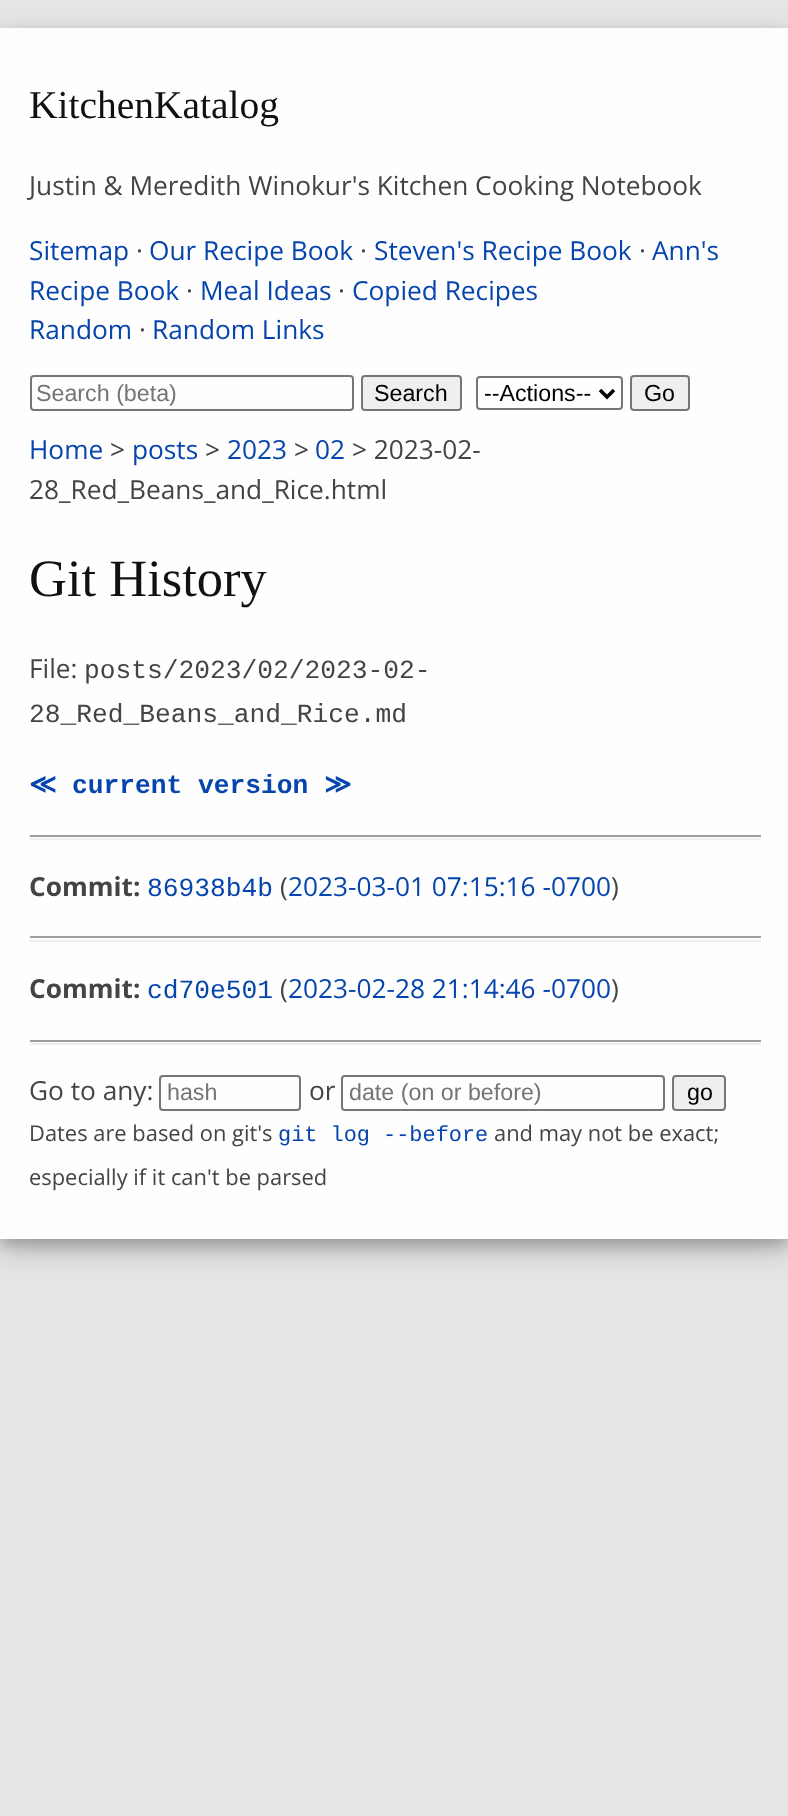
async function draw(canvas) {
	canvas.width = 788;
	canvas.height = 1816;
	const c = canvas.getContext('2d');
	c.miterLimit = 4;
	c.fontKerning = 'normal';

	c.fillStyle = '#e6e6e6';
	c.fillRect(0, 0, 788, 1816);
	c.fillStyle = '#00000030';
	c.filter = 'blur(17.5px)';
	c.beginPath();
	c.rect(0, 39, 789, 1211);
	c.fill();
	c.filter = 'none';
	c.fillStyle = '#00000033';
	c.filter = 'blur(7px)';
	c.beginPath();
	c.rect(0, 35, 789, 1211);
	c.fill();
	c.filter = 'none';
	c.fillStyle = '#fefefe';
	c.fillRect(0, 28, 788, 1211);
	c.font = '39.5px Liberation Serif';
	c.fillStyle = '#111';
	c.fillText('KitchenKatalog', 29, 118);
	c.font = '26.25px Open Sans';
	c.fillStyle = '#444';
	c.fillText('Justin & Meredith Winokur\'s Kitchen Cooking Notebook', 29, 195);
	c.fillStyle = '#0645ad';
	c.fillText('Sitemap', 29, 260);
	c.fillStyle = '#444';
	c.fillText('·', 136, 260);
	c.fillStyle = '#0645ad';
	c.fillText('Our Recipe Book', 149, 260);
	c.fillStyle = '#444';
	c.fillText('·', 360, 260);
	c.fillStyle = '#0645ad';
	c.fillText('Steven\'s Recipe Book', 374, 260);
	c.fillStyle = '#444';
	c.fillText('·', 639, 260);
	c.fillStyle = '#0645ad';
	c.fillText('Ann\'s', 652, 260);
	c.fillText('Recipe Book', 29, 300);
	c.fillStyle = '#444';
	c.fillText('·', 186, 300);
	c.fillStyle = '#0645ad';
	c.fillText('Meal Ideas', 200, 300);
	c.fillStyle = '#444';
	c.fillText('·', 338, 300);
	c.fillStyle = '#0645ad';
	c.fillText('Copied Recipes', 352, 300);
	c.fillText('Random', 29, 339);
	c.fillStyle = '#444';
	c.fillText('·', 139, 339);
	c.fillStyle = '#0645ad';
	c.fillText('Random Links', 152, 339);
	c.beginPath();
	c.roundRect(31, 376, 322, 34, 3);
	c.strokeStyle = '#767676';
	c.lineWidth = 2;
	c.stroke();
	c.font = '23.25px Liberation Sans';
	c.fillStyle = '#757575';
	c.fillText('Search (beta)', 36, 401);
	c.fillStyle = '#efefef';
	c.beginPath();
	c.roundRect(362, 376, 99, 34, 3);
	c.fill();
	c.stroke();
	c.fillStyle = '#000';
	c.fillText('Search', 374, 401);
	c.beginPath();
	c.roundRect(477, 377, 145, 32, 3);
	c.stroke();
	c.beginPath();
	c.moveTo(600, 390);
	c.lineTo(607, 397);
	c.lineTo(614, 390);
	c.strokeStyle = '#000';
	c.lineWidth = 3.5;
	c.stroke();
	c.fillText('--Actions--', 484, 401);
	c.fillStyle = '#efefef';
	c.beginPath();
	c.roundRect(631, 376, 58, 34, 3);
	c.fill();
	c.strokeStyle = '#767676';
	c.lineWidth = 2;
	c.stroke();
	c.fillStyle = '#000';
	c.fillText('Go', 644, 401);
	c.font = '26.25px Open Sans';
	c.fillStyle = '#0645ad';
	c.fillText('Home', 29, 459);
	c.fillStyle = '#444';
	c.fillText('>', 110, 459);
	c.fillStyle = '#0645ad';
	c.fillText('posts', 132, 459);
	c.fillStyle = '#444';
	c.fillText('>', 205, 459);
	c.fillStyle = '#0645ad';
	c.fillText('2023', 227, 459);
	c.fillStyle = '#444';
	c.fillText('>', 294, 459);
	c.fillStyle = '#0645ad';
	c.fillText('02', 315, 459);
	c.fillStyle = '#444';
	c.fillText('> 2023-02-', 352, 459);
	c.fillText('28_Red_Beans_and_Rice.html', 29, 499);
	c.font = '52.5px Liberation Serif';
	c.fillStyle = '#111';
	c.fillText('Git History', 29, 596);
	c.font = '26.25px Open Sans';
	c.fillStyle = '#444';
	c.fillText('File:', 29, 678);
	c.font = '26.25px Liberation Mono';
	c.fillText('posts/2023/02/2023-02-', 84, 678);
	c.fillText('28_Red_Beans_and_Rice.md', 29, 722);
	c.font = 'bold 26.25px DejaVu Sans';
	c.fillStyle = '#0645ad';
	c.fillText('≪', 29, 793);
	c.font = 'bold 26.25px Liberation Mono';
	c.fillText('current version', 72, 793);
	c.font = 'bold 26.25px DejaVu Sans';
	c.fillText('≫', 324, 793);
	c.fillStyle = '#9f9f9f';
	c.fillRect(30, 835, 731, 2);
	c.fillStyle = '#eee';
	c.fillRect(30, 838, 731, 2);
	c.font = 'bold 26.25px Open Sans';
	c.fillStyle = '#444';
	c.fillText('Commit:', 29, 896);
	c.font = '26.25px Liberation Mono';
	c.fillStyle = '#0645ad';
	c.fillText('86938b4b', 147, 896);
	c.font = '26.25px Open Sans';
	c.fillStyle = '#444';
	c.fillText('(', 280, 896);
	c.fillStyle = '#0645ad';
	c.fillText('2023-03-01 07:15:16 -0700', 288, 896);
	c.fillStyle = '#444';
	c.fillText(')', 611, 896);
	c.fillStyle = '#9f9f9f';
	c.fillRect(30, 936, 731, 2);
	c.fillStyle = '#eee';
	c.fillRect(30, 940, 731, 2);
	c.font = 'bold 26.25px Open Sans';
	c.fillStyle = '#444';
	c.fillText('Commit:', 29, 998);
	c.font = '26.25px Liberation Mono';
	c.fillStyle = '#0645ad';
	c.fillText('cd70e501', 147, 998);
	c.font = '26.25px Open Sans';
	c.fillStyle = '#444';
	c.fillText('(', 280, 998);
	c.fillStyle = '#0645ad';
	c.fillText('2023-02-28 21:14:46 -0700', 288, 998);
	c.fillStyle = '#444';
	c.fillText(')', 611, 998);
	c.fillStyle = '#9f9f9f';
	c.fillRect(30, 1040, 731, 2);
	c.fillStyle = '#eee';
	c.fillRect(30, 1043, 731, 2);
	c.fillStyle = '#444';
	c.fillText('Go to any:', 29, 1100);
	c.beginPath();
	c.roundRect(160, 1076, 140, 34, 3);
	c.stroke();
	c.font = '23.25px Liberation Sans';
	c.fillStyle = '#757575';
	c.fillText('hash', 167, 1100);
	c.font = '26.25px Open Sans';
	c.fillStyle = '#444';
	c.fillText('or', 309, 1100);
	c.beginPath();
	c.roundRect(342, 1076, 322, 34, 3);
	c.stroke();
	c.font = '23.25px Liberation Sans';
	c.fillStyle = '#757575';
	c.fillText('date (on or before)', 349, 1100);
	c.fillStyle = '#efefef';
	c.beginPath();
	c.roundRect(673, 1076, 52, 34, 3);
	c.fill();
	c.stroke();
	c.fillStyle = '#000';
	c.fillText('go', 687, 1100);
	c.font = '21.9px Open Sans';
	c.fillStyle = '#444';
	c.fillText('Dates are based on git\'s', 29, 1141);
	c.font = '21.9px Liberation Mono';
	c.fillStyle = '#0645ad';
	c.fillText('git log --before', 278, 1141);
	c.font = '21.9px Open Sans';
	c.fillStyle = '#444';
	c.fillText('and may not be exact;', 494, 1141);
	c.fillText('especially if it can\'t be parsed', 29, 1185);
}

draw(document.querySelector('canvas'));
